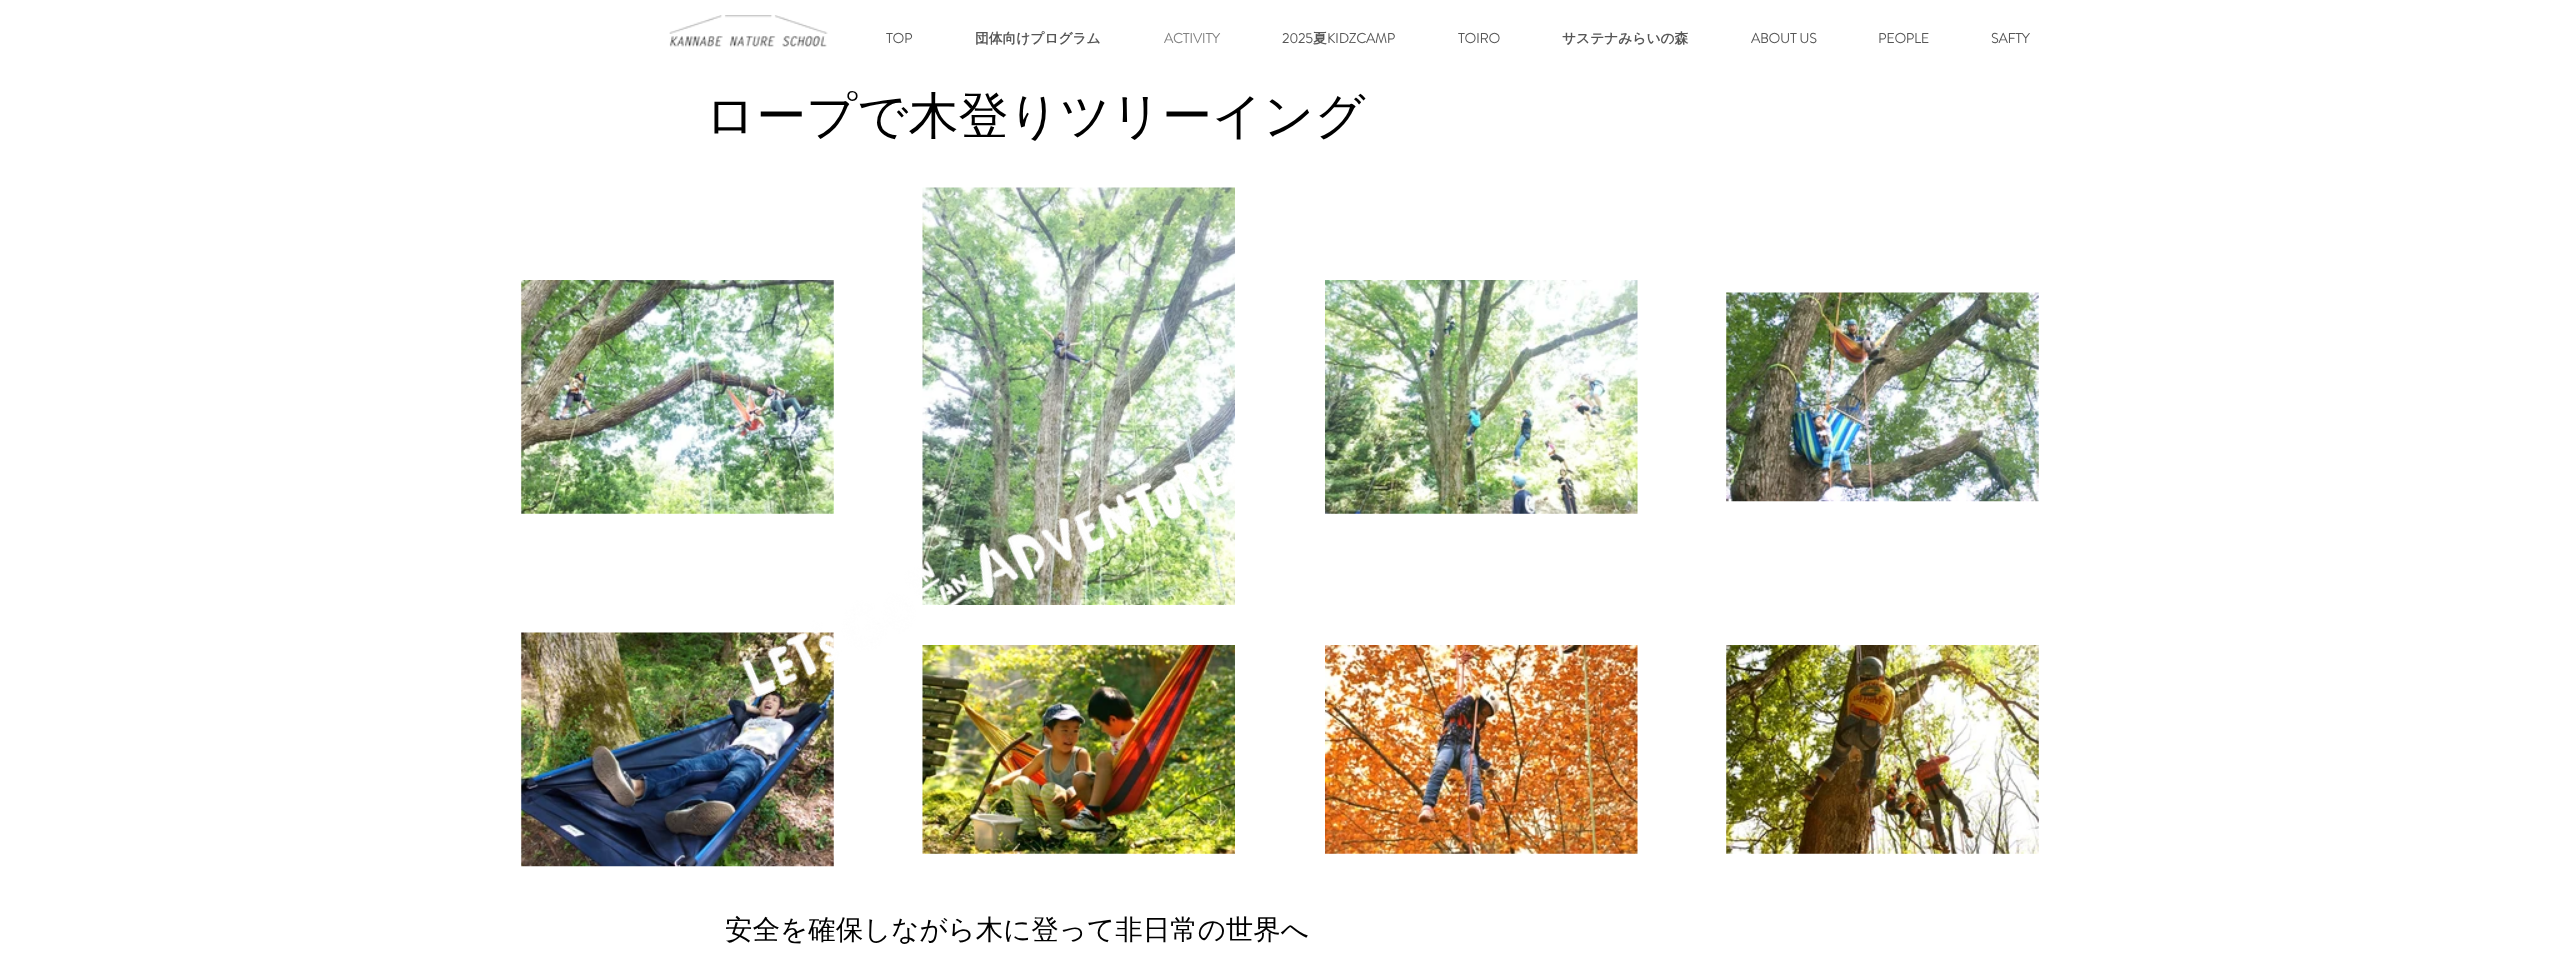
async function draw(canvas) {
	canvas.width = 2559;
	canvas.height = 954;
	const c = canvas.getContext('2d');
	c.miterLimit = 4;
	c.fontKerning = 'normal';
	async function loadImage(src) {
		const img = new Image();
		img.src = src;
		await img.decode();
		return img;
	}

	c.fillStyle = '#fff';
	c.fillRect(0, 0, 2559, 954);
	c.drawImage(await loadImage('img1.png'), 669, 15, 159, 32);
	c.font = 'bold 13.75px "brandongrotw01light"';
	c.fillStyle = '#565656';
	c.fillText('TOP', 886, 43);
	c.font = 'bold 13.75px WenQuanYi Zen Hei';
	c.fillText('団体向けプログラム', 975, 43);
	c.font = 'bold 13.75px "brandongrotw01light"';
	c.fillStyle = '#808080';
	c.fillText('ACTIVITY', 1164, 43);
	c.fillStyle = '#565656';
	c.fillText('2025', 1282, 43);
	c.font = 'bold 13.75px WenQuanYi Zen Hei';
	c.fillText('夏', 1313, 43);
	c.font = 'bold 13.75px "brandongrotw01light"';
	c.fillText('KIDZCAMP', 1327, 43);
	c.fillText('TOIRO', 1458, 43);
	c.font = 'bold 13.75px WenQuanYi Zen Hei';
	c.fillText('サステナみらいの森', 1562, 43);
	c.font = 'bold 13.75px "brandongrotw01light"';
	for (const [text, x, y] of [
		['ABOUT US', 1751, 43],
		['PEOPLE', 1878, 43],
		['SAFTY', 1991, 43],
	]) {
		c.fillText(text, x, y);
	}
	c.font = '500 50px WenQuanYi Zen Hei';
	c.fillStyle = '#000';
	c.fillText('ロープで木登りツリーイング', 705, 133);
	c.drawImage(await loadImage('img2.png'), 521, 280, 313, 234);
	c.drawImage(await loadImage('img3.png'), 922, 187, 313, 418);
	c.drawImage(await loadImage('img4.png'), 1325, 280, 313, 234);
	c.drawImage(await loadImage('img5.png'), 1726, 292, 313, 210);
	c.drawImage(await loadImage('img6.png'), 521, 632, 313, 235);
	c.drawImage(await loadImage('img7.png'), 922, 645, 313, 209);
	c.drawImage(await loadImage('img8.png'), 1325, 645, 313, 209);
	c.drawImage(await loadImage('img9.png'), 1726, 645, 313, 209);
	c.drawImage(await loadImage('img10.png'), 742, 443, 493, 255);
	c.font = '500 27.5px WenQuanYi Zen Hei';
	c.fillText('安全を確保しながら木に登って非日常の世界へ', 725, 939);
}

draw(document.querySelector('canvas'));
